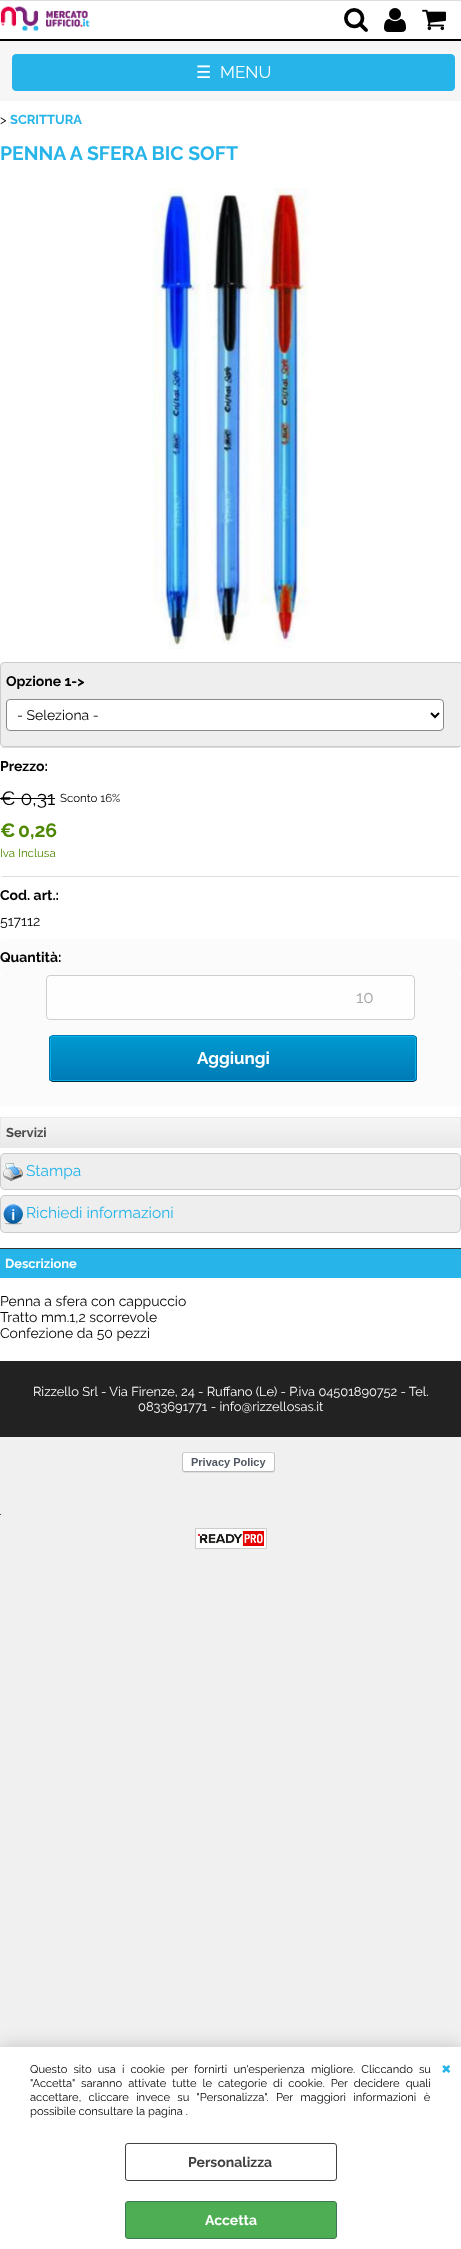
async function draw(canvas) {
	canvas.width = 461;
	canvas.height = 2249;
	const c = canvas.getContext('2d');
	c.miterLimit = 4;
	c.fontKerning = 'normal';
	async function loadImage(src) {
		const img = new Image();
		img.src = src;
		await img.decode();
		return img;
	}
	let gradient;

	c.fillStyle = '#f0f0f0';
	c.fillRect(0, 0, 461, 2249);
	for (const [x, y, w, h, color] of [
		[0, 1, 461, 38, '#fff'],
		[0, 0, 461, 1, '#ddd'],
		[0, 39, 461, 2, '#000'],
	]) {
		c.fillStyle = color;
		c.fillRect(x, y, w, h);
	}
	c.drawImage(await loadImage('img1.png'), 0, 6, 90, 25);
	c.drawImage(await loadImage('img2.png'), 344, 8, 24, 24);
	c.drawImage(await loadImage('img3.png'), 384, 8, 22, 24);
	c.drawImage(await loadImage('img4.png'), 422, 9, 24, 22);
	c.fillStyle = '#f6f6f6';
	c.fillRect(0, 41, 461, 60);
	c.fillStyle = '#26b4e9';
	c.beginPath();
	c.roundRect(12.5, 54.5, 442, 36, 3.5);
	c.fill();
	c.strokeStyle = '#26b4e9';
	c.stroke();
	c.font = '17px DejaVu Sans';
	c.fillStyle = '#fff';
	c.fillText('☰', 196, 78);
	c.font = '17px Raleway';
	c.fillText('MENU', 220, 78);
	c.fillRect(0, 101, 461, 1260);
	c.font = '12.9px Raleway';
	c.fillStyle = '#000';
	c.fillText('>', 0, 124);
	c.font = 'bold 12.9px Raleway';
	c.fillStyle = '#26b4e9';
	c.fillText('SCRITTURA', 10, 124);
	c.font = 'bold 19.4px Raleway';
	c.fillText('PENNA A SFERA BIC SOFT', 0, 160);
	c.drawImage(await loadImage('img5.png'), 152, 188, 158, 461);
	c.fillStyle = '#eee';
	c.beginPath();
	c.roundRect(0.5, 662.5, 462, 84, 3.5);
	c.fill();
	c.strokeStyle = '#ccc';
	c.stroke();
	c.font = 'bold 14px Raleway';
	c.fillStyle = '#000';
	c.fillText('Opzione 1->', 6, 686);
	c.fillStyle = '#fff';
	c.beginPath();
	c.roundRect(6.5, 699.5, 437, 31, 3.5);
	c.fill();
	c.strokeStyle = '#888';
	c.stroke();
	c.beginPath();
	c.moveTo(431, 713);
	c.lineTo(435, 717);
	c.lineTo(439, 713);
	c.strokeStyle = '#000';
	c.lineWidth = 2;
	c.stroke();
	c.font = '14px Raleway';
	c.fillStyle = '#000';
	c.fillText('- Seleziona -', 17, 720);
	c.fillStyle = '#ddd';
	c.fillRect(2, 747, 457, 1);
	c.font = 'bold 14px Raleway';
	c.fillStyle = '#000';
	c.fillText('Prezzo:', 0, 771);
	c.font = '19.4px Raleway';
	c.fillText('€ 0,31', 0, 805);
	c.fillRect(0, 798, 55, 1);
	c.font = '11.5px Raleway';
	c.fillText('Sconto 16%', 60, 802);
	c.font = 'bold 19.4px Raleway';
	c.fillStyle = '#4d8800';
	c.fillText('€', 0, 837);
	c.fillText('0,26', 18, 837);
	c.font = '11.5px Raleway';
	c.fillText('Iva Inclusa', 0, 857);
	c.fillStyle = '#ddd';
	c.fillRect(2, 876, 457, 1);
	c.font = 'bold 14px Raleway';
	c.fillStyle = '#000';
	c.fillText('Cod. art.:', 0, 900);
	c.font = '14px Raleway';
	c.fillText('517112', 0, 926);
	c.fillStyle = '#fbfbfb';
	c.beginPath();
	c.roundRect(0, 939, 461, 36, 4);
	c.fill();
	c.font = 'bold 14px Raleway';
	c.fillStyle = '#000';
	c.fillText('Quantità:', 0, 962);
	c.fillStyle = '#fbfbfb';
	c.beginPath();
	c.roundRect(0, 975, 461, 132, 4);
	c.fill();
	c.fillStyle = '#fefefe';
	c.beginPath();
	c.roundRect(46.5, 975.5, 368, 44, 3.5);
	c.fill();
	c.strokeStyle = '#cecece';
	c.lineWidth = 1;
	c.stroke();
	c.font = '17px Raleway';
	c.fillStyle = '#a5a5a5';
	c.fillText('10', 356, 1003);
	c.save();
	c.beginPath();
	c.roundRect(49, 1035, 368, 47, 4);
	c.clip();
	gradient = c.createLinearGradient(233, 1036, 233, 1081);
	gradient.addColorStop(0, '#009ad0');
	gradient.addColorStop(1, '#007ab7');
	c.fillStyle = gradient;
	c.fillRect(49, 1036, 368, 45);
	c.restore();
	c.beginPath();
	c.roundRect(50.5, 1036.5, 365, 44, 2.5);
	c.strokeStyle = '#06b2e6';
	c.stroke();
	c.beginPath();
	c.moveTo(50.5, 1036.5);
	c.bezierCurveTo(51, 1036, 52, 1035.5, 53, 1035.5);
	c.lineTo(413, 1035.5);
	c.bezierCurveTo(414, 1035.5, 415, 1036, 415.5, 1036.5);
	c.strokeStyle = '#0079b6';
	c.stroke();
	c.beginPath();
	c.moveTo(415.5, 1036.5);
	c.bezierCurveTo(416, 1037, 416.5, 1038, 416.5, 1039);
	c.lineTo(416.5, 1078);
	c.bezierCurveTo(416.5, 1079, 416, 1080, 415.5, 1080.5);
	c.strokeStyle = '#006fa8';
	c.stroke();
	c.beginPath();
	c.moveTo(415.5, 1080.5);
	c.bezierCurveTo(415, 1081, 414, 1081.5, 413, 1081.5);
	c.lineTo(53, 1081.5);
	c.bezierCurveTo(52, 1081.5, 51, 1081, 50.5, 1080.5);
	c.strokeStyle = '#012740';
	c.stroke();
	c.beginPath();
	c.moveTo(50.5, 1080.5);
	c.bezierCurveTo(50, 1080, 49.5, 1079, 49.5, 1078);
	c.lineTo(49.5, 1039);
	c.bezierCurveTo(49.5, 1038, 50, 1037, 50.5, 1036.5);
	c.strokeStyle = '#006fa8';
	c.stroke();
	c.font = 'bold 17px Raleway';
	c.fillStyle = '#fff';
	c.fillText('Aggiungi', 197, 1064);
	gradient = c.createLinearGradient(231, 1118, 231, 1147);
	gradient.addColorStop(0, '#f6f6f6');
	gradient.addColorStop(1, '#e9e9e9');
	c.fillStyle = gradient;
	c.fillRect(1, 1118, 459, 29);
	c.strokeStyle = '#e9e9e9';
	c.strokeRect(0.5, 1117.5, 460, 30);
	c.font = 'bold 12.9px Raleway';
	c.fillStyle = '#484848';
	c.fillText('Servizi', 6, 1137);
	c.fillStyle = '#eee';
	c.beginPath();
	c.roundRect(0, 1153, 461, 37, 5);
	c.fill();
	c.drawImage(await loadImage('img6.png'), 3, 1163, 20, 18);
	c.beginPath();
	c.roundRect(0.5, 1153.5, 460, 36, 4.5);
	c.strokeStyle = '#ccc';
	c.stroke();
	c.font = '15.5px Raleway';
	c.fillStyle = '#26b4e9';
	c.fillText('Stampa', 26, 1176);
	c.fillStyle = '#eee';
	c.beginPath();
	c.roundRect(0, 1195, 461, 38, 5);
	c.fill();
	c.drawImage(await loadImage('img7.png'), 3, 1204, 20, 21);
	c.beginPath();
	c.roundRect(0.5, 1195.5, 460, 37, 4.5);
	c.stroke();
	c.fillStyle = '#26b4e9';
	c.fillText('Richiedi informazioni', 26, 1218);
	c.fillRect(0, 1249, 461, 29);
	c.fillStyle = '#333';
	c.fillRect(0, 1248, 461, 1);
	c.font = 'bold 12.9px Raleway';
	c.fillStyle = '#fff';
	c.fillText('Descrizione', 5, 1268);
	c.font = '14px Raleway';
	c.fillStyle = '#000';
	for (const [text, x, y] of [
		['Penna a sfera con cappuccio', 0, 1306],
		['Tratto mm.1,2 scorrevole', 0, 1322],
		['Confezione da 50 pezzi', 0, 1338],
	]) {
		c.fillText(text, x, y);
	}
	c.fillStyle = '#222';
	c.fillRect(0, 1361, 461, 76);
	c.font = '12.9px Raleway';
	c.fillStyle = '#fff';
	c.fillText('Rizzello Srl - Via Firenze, 24 - Ruffano (Le) - P.iva 04501890752 - Tel.', 33, 1396);
	c.fillText('0833691771 - info@rizzellosas.it', 138, 1411);
	c.drawImage(await loadImage('img8.png'), 182, 1452, 93, 21);
	c.fillStyle = '#484848';
	c.fillRect(0, 1514, 1, 1);
	c.fillStyle = '#fff';
	c.beginPath();
	c.rect(195.5, 1528.5, 71, 20);
	c.fill();
	c.stroke();
	c.drawImage(await loadImage('img9.png'), 198, 1531, 66, 15);
	c.fillStyle = '#00000033';
	c.filter = 'blur(9px)';
	c.beginPath();
	c.rect(0, 2047, 461, 202);
	c.fill();
	c.filter = 'none';
	c.fillStyle = '#fff';
	c.fillRect(0, 2047, 461, 202);
	c.wordSpacing = '3.25px';
	c.font = '11.2px Raleway';
	c.fillStyle = '#000';
	c.fillText('Questo sito usa i cookie per fornirti un\'esperienza migliore. Cliccando su', 30, 2073);
	c.wordSpacing = '3.1px';
	c.fillText('"Accetta" saranno attivate tutte le categorie di cookie. Per decidere quali', 30, 2087);
	c.wordSpacing = '4.5px';
	c.fillText('accettare, cliccare invece su "Personalizza". Per maggiori informazioni è', 30, 2101);
	c.wordSpacing = '0px';
	c.fillText('possibile consultare la pagina .', 30, 2115);
	c.font = 'bold 22px Raleway';
	c.fillStyle = '#26b4e9';
	c.fillText('×', 441, 2075);
	c.beginPath();
	c.roundRect(125.5, 2143.5, 211, 37, 2.5);
	c.strokeStyle = '#424141';
	c.stroke();
	c.font = 'bold 14px Raleway';
	c.fillStyle = '#424141';
	c.fillText('Personalizza', 188, 2167);
	c.fillStyle = '#4eae54';
	c.beginPath();
	c.roundRect(125.5, 2201.5, 211, 37, 2.5);
	c.fill();
	c.strokeStyle = '#3f7755';
	c.stroke();
	c.fillStyle = '#fff';
	c.fillText('Accetta', 205, 2225);
}

draw(document.querySelector('canvas'));
